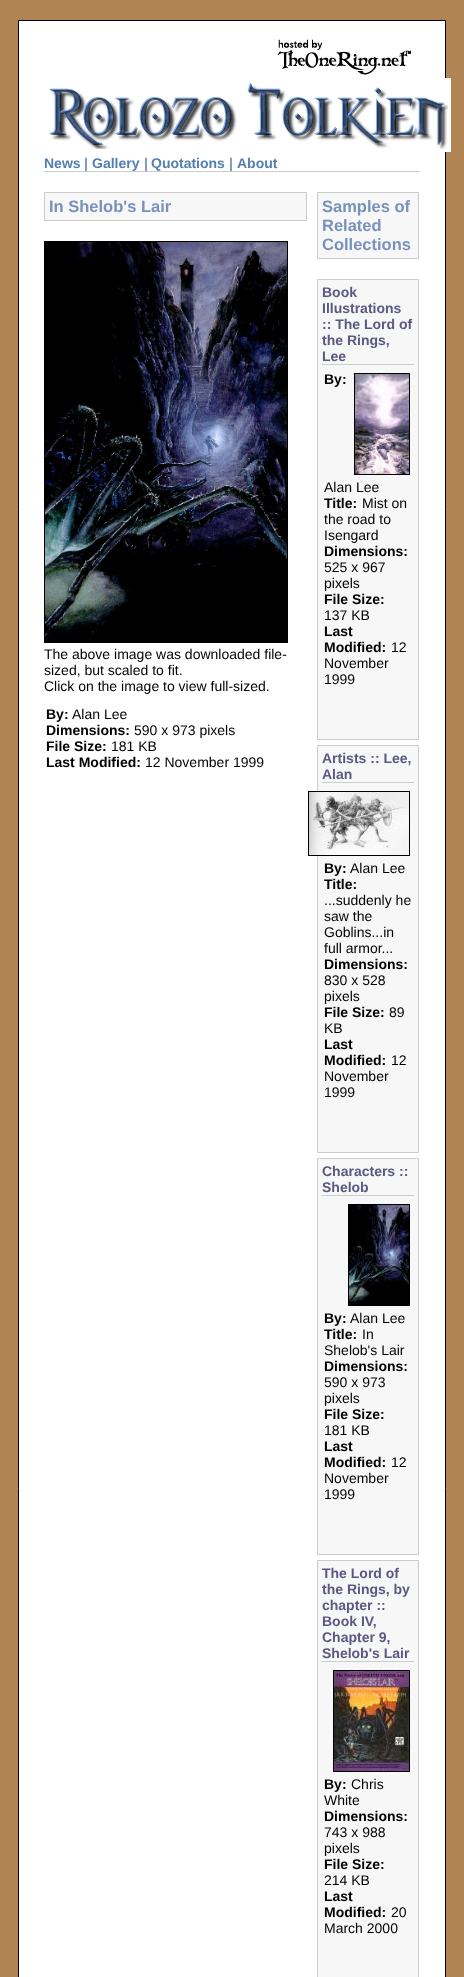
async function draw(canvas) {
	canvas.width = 464;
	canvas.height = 1977;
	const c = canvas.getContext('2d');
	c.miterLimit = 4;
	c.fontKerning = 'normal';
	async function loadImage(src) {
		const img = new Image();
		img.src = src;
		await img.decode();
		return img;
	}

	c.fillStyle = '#b08553';
	c.fillRect(0, 0, 464, 1977);
	c.fillStyle = '#fff';
	c.beginPath();
	c.rect(18.5, 20.5, 427, 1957);
	c.fill();
	c.strokeStyle = '#000';
	c.stroke();
	c.drawImage(await loadImage('img1.png'), 277, 39, 134, 36);
	c.drawImage(await loadImage('img2.png'), 49, 78, 402, 74);
	c.fillStyle = '#ccc';
	c.fillRect(44, 171, 376, 1);
	c.font = 'bold 14px Liberation Sans';
	c.fillStyle = '#537eb0';
	c.fillText('News', 44, 168);
	c.fillStyle = '#7792bc';
	c.fillText('|', 84, 168);
	c.fillStyle = '#537eb0';
	c.fillText('Gallery', 92, 168);
	c.fillStyle = '#7792bc';
	c.fillText('|', 144, 168);
	c.fillStyle = '#537eb0';
	c.fillText('Quotations', 151, 168);
	c.fillStyle = '#7792bc';
	c.fillText('|', 229, 168);
	c.fillStyle = '#537eb0';
	c.fillText('About', 237, 168);
	c.fillStyle = '#f7f7f7';
	c.beginPath();
	c.rect(44.5, 192.5, 262, 28);
	c.fill();
	c.strokeStyle = '#ccc';
	c.stroke();
	c.font = 'bold 16.5px Liberation Sans';
	c.fillStyle = '#7792bc';
	c.fillText('In Shelob\'s Lair', 49, 212);
	c.strokeStyle = '#000';
	c.strokeRect(44.5, 241.5, 243, 401);
	c.drawImage(await loadImage('img3.png'), 45, 242, 242, 400);
	c.font = '14px Liberation Sans';
	c.fillStyle = '#000';
	for (const [text, x, y] of [
		['The above image was downloaded file-', 44, 659],
		['sized, but scaled to fit.', 44, 675],
		['Click on the image to view full-sized.', 44, 691],
	]) {
		c.fillText(text, x, y);
	}
	c.font = 'bold 14px Liberation Sans';
	c.fillText('By:', 46, 719);
	c.font = '14px Liberation Sans';
	c.fillText('Alan Lee', 72, 719);
	c.font = 'bold 14px Liberation Sans';
	c.fillText('Dimensions:', 46, 735);
	c.font = '14px Liberation Sans';
	c.fillText('590 x 973 pixels', 134, 735);
	c.font = 'bold 14px Liberation Sans';
	c.fillText('File Size:', 46, 751);
	c.font = '14px Liberation Sans';
	c.fillText('181 KB', 111, 751);
	c.font = 'bold 14px Liberation Sans';
	c.fillText('Last Modified:', 46, 767);
	c.font = '14px Liberation Sans';
	c.fillText('12 November 1999', 145, 767);
	c.fillStyle = '#f7f7f7';
	c.beginPath();
	c.rect(317.5, 192.5, 101, 66);
	c.fill();
	c.strokeStyle = '#ccc';
	c.stroke();
	c.font = 'bold 16.5px Liberation Sans';
	c.fillStyle = '#7792bc';
	for (const [text, x, y] of [
		['Samples of', 322, 212],
		['Related', 322, 231],
		['Collections', 322, 250],
	]) {
		c.fillText(text, x, y);
	}
	c.fillStyle = '#f7f7f7';
	c.beginPath();
	c.rect(317.5, 279.5, 101, 460);
	c.fill();
	c.stroke();
	c.fillStyle = '#ccc';
	c.fillRect(322, 364, 92, 1);
	c.font = 'bold 14px Liberation Sans';
	c.fillStyle = '#595983';
	for (const [text, x, y] of [
		['Book', 322, 297],
		['Illustrations', 322, 313],
		[':: The Lord of', 322, 329],
		['the Rings,', 322, 345],
		['Lee', 322, 361],
	]) {
		c.fillText(text, x, y);
	}
	c.strokeStyle = '#000';
	c.strokeRect(354.5, 373.5, 55, 101);
	c.drawImage(await loadImage('img4.png'), 355, 374, 54, 100);
	c.fillStyle = '#000';
	c.fillText('By:', 324, 384);
	c.font = '14px Liberation Sans';
	c.fillText('Alan Lee', 324, 492);
	c.font = 'bold 14px Liberation Sans';
	c.fillText('Title:', 324, 508);
	c.font = '14px Liberation Sans';
	for (const [text, x, y] of [
		['Mist on', 362, 508],
		['the road to', 324, 524],
		['Isengard', 324, 540],
	]) {
		c.fillText(text, x, y);
	}
	c.font = 'bold 14px Liberation Sans';
	c.fillText('Dimensions:', 324, 556);
	c.font = '14px Liberation Sans';
	c.fillText('525 x 967', 324, 572);
	c.fillText('pixels', 324, 588);
	c.font = 'bold 14px Liberation Sans';
	c.fillText('File Size:', 324, 604);
	c.font = '14px Liberation Sans';
	c.fillText('137 KB', 324, 620);
	c.font = 'bold 14px Liberation Sans';
	c.fillText('Last', 324, 636);
	c.fillText('Modified:', 324, 652);
	c.font = '14px Liberation Sans';
	for (const [text, x, y] of [
		['12', 391, 652],
		['November', 324, 668],
		['1999', 324, 684],
	]) {
		c.fillText(text, x, y);
	}
	c.fillStyle = '#f7f7f7';
	c.beginPath();
	c.rect(317.5, 745.5, 101, 407);
	c.fill();
	c.strokeStyle = '#ccc';
	c.stroke();
	c.fillStyle = '#ccc';
	c.fillRect(322, 782, 92, 1);
	c.font = 'bold 14px Liberation Sans';
	c.fillStyle = '#595983';
	c.fillText('Artists :: Lee,', 322, 763);
	c.fillText('Alan', 322, 779);
	c.strokeStyle = '#000';
	c.strokeRect(308.5, 791.5, 101, 64);
	c.drawImage(await loadImage('img5.png'), 309, 792, 100, 63);
	c.fillStyle = '#000';
	c.fillText('By:', 324, 873);
	c.font = '14px Liberation Sans';
	c.fillText('Alan Lee', 350, 873);
	c.font = 'bold 14px Liberation Sans';
	c.fillText('Title:', 324, 889);
	c.font = '14px Liberation Sans';
	for (const [text, x, y] of [
		['...suddenly he', 324, 905],
		['saw the', 324, 921],
		['Goblins...in', 324, 937],
		['full armor...', 324, 953],
	]) {
		c.fillText(text, x, y);
	}
	c.font = 'bold 14px Liberation Sans';
	c.fillText('Dimensions:', 324, 969);
	c.font = '14px Liberation Sans';
	c.fillText('830 x 528', 324, 985);
	c.fillText('pixels', 324, 1001);
	c.font = 'bold 14px Liberation Sans';
	c.fillText('File Size:', 324, 1017);
	c.font = '14px Liberation Sans';
	c.fillText('89', 389, 1017);
	c.fillText('KB', 324, 1033);
	c.font = 'bold 14px Liberation Sans';
	c.fillText('Last', 324, 1049);
	c.fillText('Modified:', 324, 1065);
	c.font = '14px Liberation Sans';
	for (const [text, x, y] of [
		['12', 391, 1065],
		['November', 324, 1081],
		['1999', 324, 1097],
	]) {
		c.fillText(text, x, y);
	}
	c.fillStyle = '#f7f7f7';
	c.beginPath();
	c.rect(317.5, 1158.5, 101, 396);
	c.fill();
	c.strokeStyle = '#ccc';
	c.stroke();
	c.fillStyle = '#ccc';
	c.fillRect(322, 1195, 92, 1);
	c.font = 'bold 14px Liberation Sans';
	c.fillStyle = '#595983';
	c.fillText('Characters ::', 322, 1176);
	c.fillText('Shelob', 322, 1192);
	c.strokeStyle = '#000';
	c.strokeRect(348.5, 1204.5, 61, 101);
	c.drawImage(await loadImage('img6.png'), 349, 1205, 60, 100);
	c.fillStyle = '#000';
	c.fillText('By:', 324, 1323);
	c.font = '14px Liberation Sans';
	c.fillText('Alan Lee', 350, 1323);
	c.font = 'bold 14px Liberation Sans';
	c.fillText('Title:', 324, 1339);
	c.font = '14px Liberation Sans';
	c.fillText('In', 362, 1339);
	c.fillText('Shelob\'s Lair', 324, 1355);
	c.font = 'bold 14px Liberation Sans';
	c.fillText('Dimensions:', 324, 1371);
	c.font = '14px Liberation Sans';
	c.fillText('590 x 973', 324, 1387);
	c.fillText('pixels', 324, 1403);
	c.font = 'bold 14px Liberation Sans';
	c.fillText('File Size:', 324, 1419);
	c.font = '14px Liberation Sans';
	c.fillText('181 KB', 324, 1435);
	c.font = 'bold 14px Liberation Sans';
	c.fillText('Last', 324, 1451);
	c.fillText('Modified:', 324, 1467);
	c.font = '14px Liberation Sans';
	for (const [text, x, y] of [
		['12', 391, 1467],
		['November', 324, 1483],
		['1999', 324, 1499],
	]) {
		c.fillText(text, x, y);
	}
	c.fillStyle = '#f7f7f7';
	c.beginPath();
	c.rect(317.5, 1560.5, 101, 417);
	c.fill();
	c.strokeStyle = '#ccc';
	c.stroke();
	c.fillStyle = '#ccc';
	c.fillRect(322, 1661, 92, 1);
	c.font = 'bold 14px Liberation Sans';
	c.fillStyle = '#595983';
	for (const [text, x, y] of [
		['The Lord of', 322, 1578],
		['the Rings, by', 322, 1594],
		['chapter ::', 322, 1610],
		['Book IV,', 322, 1626],
		['Chapter 9,', 322, 1642],
		['Shelob\'s Lair', 322, 1658],
	]) {
		c.fillText(text, x, y);
	}
	c.strokeStyle = '#000';
	c.strokeRect(333.5, 1670.5, 76, 101);
	c.drawImage(await loadImage('img7.png'), 334, 1671, 75, 100);
	c.fillStyle = '#000';
	c.fillText('By:', 324, 1789);
	c.font = '14px Liberation Sans';
	c.fillText('Chris', 351, 1789);
	c.fillText('White', 324, 1805);
	c.font = 'bold 14px Liberation Sans';
	c.fillText('Dimensions:', 324, 1821);
	c.font = '14px Liberation Sans';
	c.fillText('743 x 988', 324, 1837);
	c.fillText('pixels', 324, 1853);
	c.font = 'bold 14px Liberation Sans';
	c.fillText('File Size:', 324, 1869);
	c.font = '14px Liberation Sans';
	c.fillText('214 KB', 324, 1885);
	c.font = 'bold 14px Liberation Sans';
	c.fillText('Last', 324, 1901);
	c.fillText('Modified:', 324, 1917);
	c.font = '14px Liberation Sans';
	c.fillText('20', 391, 1917);
	c.fillText('March 2000', 324, 1933);
}

draw(document.querySelector('canvas'));
